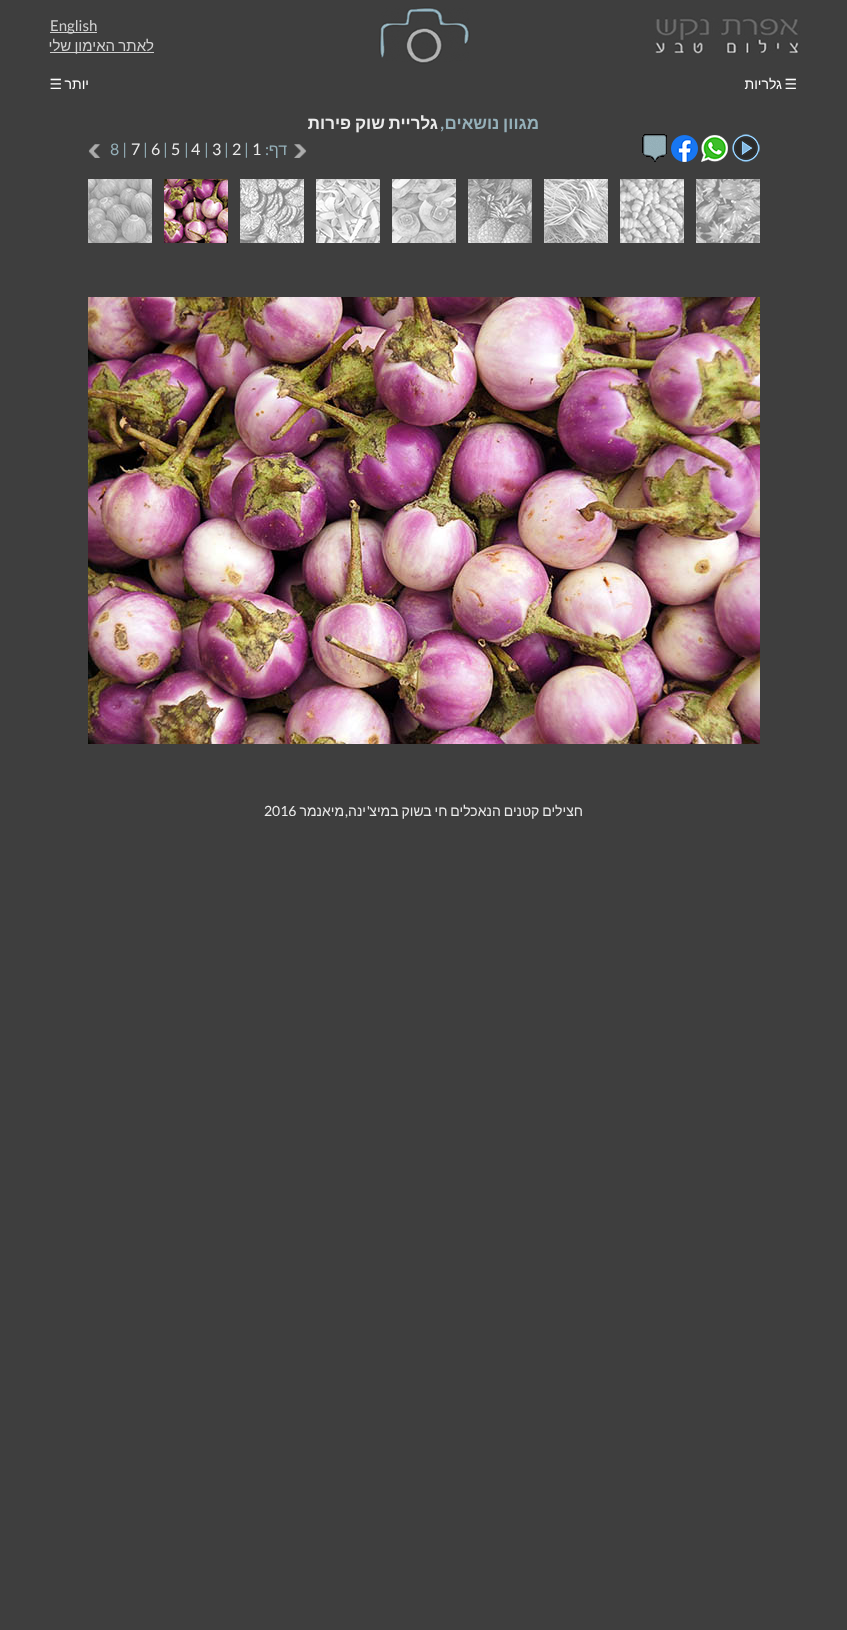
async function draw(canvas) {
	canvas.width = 847;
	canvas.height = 1630;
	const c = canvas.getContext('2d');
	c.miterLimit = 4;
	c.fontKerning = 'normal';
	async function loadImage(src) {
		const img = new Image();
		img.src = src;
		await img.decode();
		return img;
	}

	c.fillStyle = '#3e3e3e';
	c.fillRect(0, 0, 847, 1630);
	c.drawImage(await loadImage('img1.png'), 379, 7, 91, 57);
	c.drawImage(await loadImage('img2.png'), 655, 17, 145, 37);
	c.fillStyle = '#d1d1d1';
	c.fillRect(50, 32, 47, 1);
	c.font = '15px Lato';
	c.fillText('English', 50, 31);
	c.fillRect(50, 52, 104, 1);
	c.wordSpacing = '-1px';
	c.direction = 'rtl';
	c.font = '15px Liberation Sans';
	c.fillText('לאתר האימון שלי', 154, 51);
	c.wordSpacing = '0px';
	c.font = '14px DejaVu Sans';
	c.fillStyle = '#fff';
	c.fillText('☰', 797, 89);
	c.font = '14px Liberation Sans';
	c.fillText('גלריות', 782, 89);
	c.fillText('יותר', 89, 89);
	c.font = '14px DejaVu Sans';
	c.fillText('☰', 62, 89);
	c.wordSpacing = '-1px';
	c.font = 'bold 17px Liberation Sans';
	c.fillStyle = '#95b0b9';
	c.fillText('מגוון נושאים', 539, 129);
	c.wordSpacing = '0px';
	c.font = 'bold 17px Lato';
	c.fillText(',', 444, 129);
	c.wordSpacing = '-1px';
	c.font = 'bold 17px Liberation Sans';
	c.fillStyle = '#ebebeb';
	c.fillText('גלריית שוק פירות', 438, 129);
	c.drawImage(await loadImage('img3.png'), 732, 134, 28, 28);
	c.drawImage(await loadImage('img4.png'), 701, 135, 27, 27);
	c.drawImage(await loadImage('img5.png'), 671, 135, 27, 27);
	c.drawImage(await loadImage('img6.png'), 642, 134, 25, 28);
	c.drawImage(await loadImage('img7.png'), 294, 144, 13, 14);
	c.wordSpacing = '0px';
	c.font = '16px Liberation Sans';
	c.fillStyle = '#95b0b9';
	c.fillText('דף', 287, 155);
	c.font = '16px Lato';
	c.fillText(':', 269, 155);
	c.direction = 'ltr';
	c.fillStyle = '#ebebeb';
	c.fillText('1', 252, 155);
	c.fillStyle = '#95b0b9';
	c.fillText('|', 244, 155);
	c.fillStyle = '#ebebeb';
	c.fillText('2', 232, 155);
	c.fillStyle = '#95b0b9';
	c.fillText('|', 224, 155);
	c.fillStyle = '#ebebeb';
	c.fillText('3', 212, 155);
	c.fillStyle = '#95b0b9';
	c.fillText('|', 204, 155);
	c.fillStyle = '#ebebeb';
	c.fillText('4', 191, 155);
	c.fillStyle = '#95b0b9';
	c.fillText('|', 184, 155);
	c.fillStyle = '#ebebeb';
	c.fillText('5', 171, 155);
	c.fillStyle = '#95b0b9';
	c.fillText('|', 163, 155);
	c.fillStyle = '#ebebeb';
	c.fillText('6', 151, 155);
	c.fillStyle = '#95b0b9';
	c.fillText('|', 143, 155);
	c.fillStyle = '#ebebeb';
	c.fillText('7', 131, 155);
	c.fillStyle = '#95b0b9';
	c.fillText('8 |', 110, 155);
	c.drawImage(await loadImage('img8.png'), 88, 144, 13, 14);
	c.drawImage(await loadImage('img9.png'), 696, 179, 64, 64);
	c.drawImage(await loadImage('img10.png'), 620, 179, 64, 64);
	c.drawImage(await loadImage('img11.png'), 544, 179, 64, 64);
	c.drawImage(await loadImage('img12.png'), 468, 179, 64, 64);
	c.drawImage(await loadImage('img13.png'), 392, 179, 64, 64);
	c.drawImage(await loadImage('img14.png'), 316, 179, 64, 64);
	c.drawImage(await loadImage('img15.png'), 240, 179, 64, 64);
	c.drawImage(await loadImage('img16.png'), 164, 179, 64, 64);
	c.drawImage(await loadImage('img17.png'), 88, 179, 64, 64);
	c.drawImage(await loadImage('img18.png'), 88, 297, 672, 447);
	c.wordSpacing = '-1px';
	c.direction = 'rtl';
	c.font = '14px Liberation Sans';
	c.fillStyle = '#ebebeb';
	c.fillText('חצילים קטנים הנאכלים חי בשוק במיצ', 583, 816);
	c.wordSpacing = '0px';
	c.font = '14px Lato';
	c.fillText('\'', 370, 816);
	c.font = '14px Liberation Sans';
	c.fillText('ינה', 366, 816);
	c.font = '14px Lato';
	c.fillText(',', 348, 816);
	c.font = '14px Liberation Sans';
	c.fillText('מיאנמר', 344, 816);
	c.direction = 'ltr';
	c.font = '14px Lato';
	c.fillText('2016', 264, 816);
}

draw(document.querySelector('canvas'));
